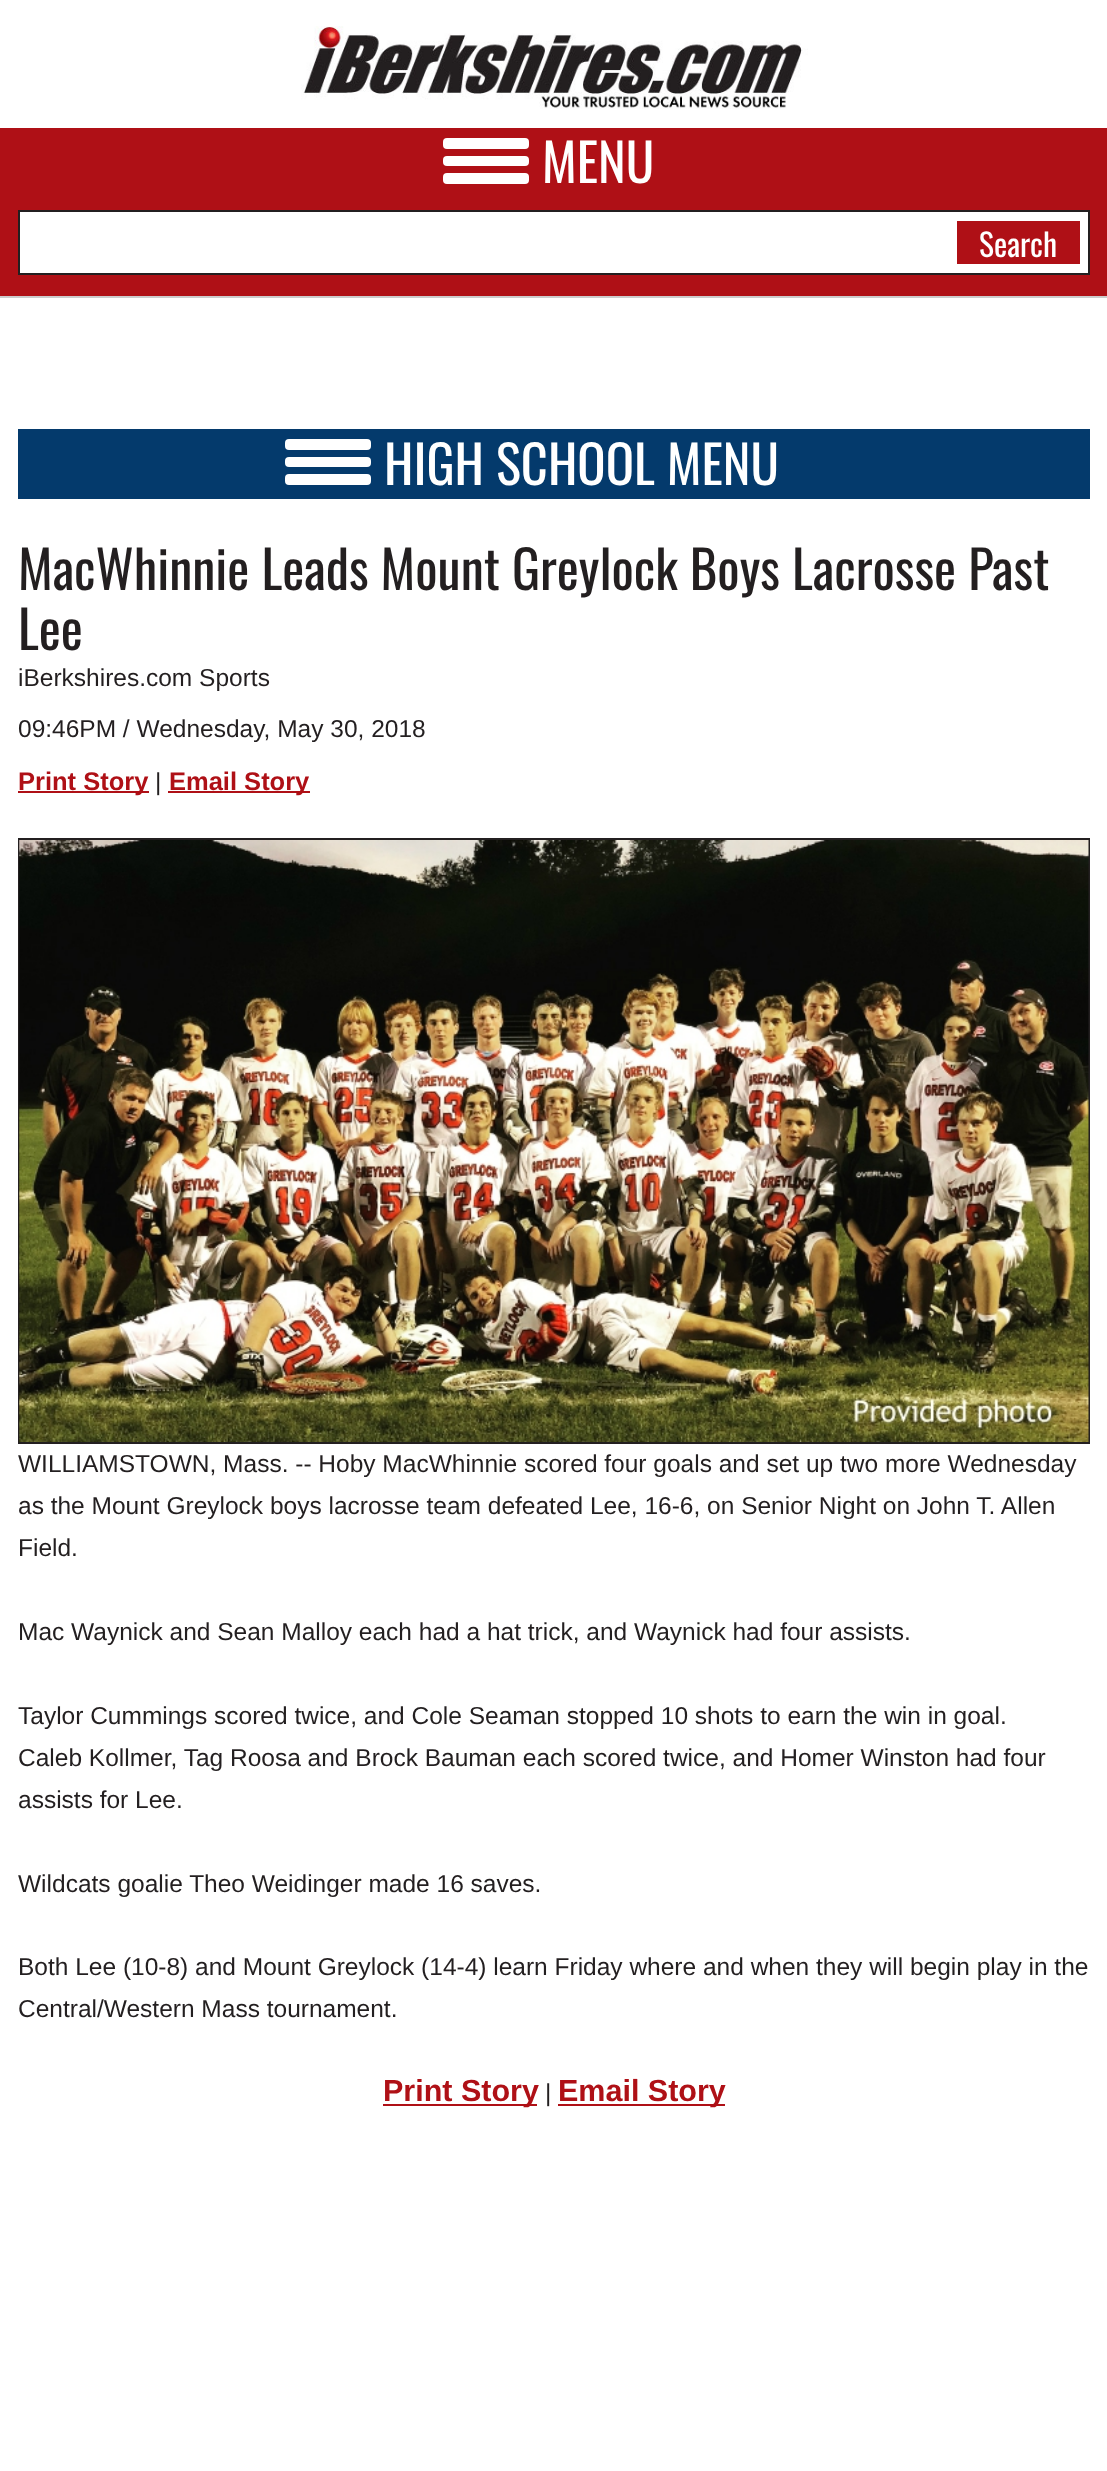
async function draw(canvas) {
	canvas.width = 1107;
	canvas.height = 2471;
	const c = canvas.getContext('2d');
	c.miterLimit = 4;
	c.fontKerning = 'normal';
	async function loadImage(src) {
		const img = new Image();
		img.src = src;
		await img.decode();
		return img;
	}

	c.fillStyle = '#fff';
	c.fillRect(0, 0, 1107, 2471);
	c.drawImage(await loadImage('img1.png'), 301, 26, 507, 83);
	c.fillStyle = '#ccc';
	c.fillRect(0, 296, 1107, 2);
	c.fillStyle = '#af1016';
	c.fillRect(0, 128, 1107, 168);
	c.fillStyle = '#fff';
	c.beginPath();
	c.roundRect(443, 138, 86, 11, 4);
	c.fill();
	c.beginPath();
	c.roundRect(443, 156, 86, 10, 4);
	c.fill();
	c.font = '52.5px Oswald';
	c.fillText('MENU', 542, 183);
	c.beginPath();
	c.roundRect(443, 173, 86, 11, 4);
	c.fill();
	c.beginPath();
	c.rect(19, 211, 1070, 63);
	c.fill();
	c.strokeStyle = '#231f20';
	c.lineWidth = 2;
	c.stroke();
	c.fillStyle = '#af1016';
	c.fillRect(957, 221, 123, 43);
	c.font = '31.5px Oswald';
	c.fillStyle = '#fff';
	c.fillText('Search', 979, 257);
	c.fillStyle = '#043a6c';
	c.fillRect(18, 429, 1072, 70);
	c.fillStyle = '#fff';
	c.beginPath();
	c.roundRect(285, 439, 86, 11, 4);
	c.fill();
	c.beginPath();
	c.roundRect(285, 457, 86, 10, 4);
	c.fill();
	c.font = '52.5px Oswald';
	c.fillText('HIGH SCHOOL MENU', 384, 485);
	c.beginPath();
	c.roundRect(285, 474, 86, 11, 4);
	c.fill();
	c.fillStyle = '#231f20';
	c.fillText('MacWhinnie Leads Mount Greylock Boys Lacrosse Past', 18, 590);
	c.fillText('Lee', 18, 650);
	c.font = '24.5px Liberation Sans';
	c.fillText('iBerkshires.com Sports', 18, 686);
	c.fillText('09:46PM / Wednesday, May 30, 2018', 18, 737);
	c.fillStyle = '#af1016';
	c.fillRect(18, 791, 131, 2);
	c.font = 'bold 25.5px Liberation Sans';
	c.fillText('Print Story', 18, 790);
	c.font = '24.5px Liberation Sans';
	c.fillStyle = '#231f20';
	c.fillText('|', 155, 790);
	c.fillStyle = '#af1016';
	c.fillRect(168, 791, 142, 2);
	c.font = 'bold 25.5px Liberation Sans';
	c.fillText('Email Story', 169, 790);
	c.strokeRect(19, 839, 1070, 604);
	c.drawImage(await loadImage('img2.png'), 19, 840, 1070, 602);
	c.font = '24.5px Liberation Sans';
	c.fillStyle = '#231f20';
	for (const [text, x, y] of [
		['WILLIAMSTOWN, Mass. -- Hoby MacWhinnie scored four goals and set up two more Wednesday', 18, 1472],
		['as the Mount Greylock boys lacrosse team defeated Lee, 16-6, on Senior Night on John T. Allen', 18, 1514],
		['Field.', 18, 1556],
		['Mac Waynick and Sean Malloy each had a hat trick, and Waynick had four assists.', 18, 1640],
		['Taylor Cummings scored twice, and Cole Seaman stopped 10 shots to earn the win in goal.', 18, 1724],
		['Caleb Kollmer, Tag Roosa and Brock Bauman each scored twice, and Homer Winston had four', 18, 1766],
		['assists for Lee.', 18, 1808],
		['Wildcats goalie Theo Weidinger made 16 saves.', 18, 1892],
		['Both Lee (10-8) and Mount Greylock (14-4) learn Friday where and when they will begin play in the', 18, 1975],
		['Central/Western Mass tournament.', 18, 2017],
	]) {
		c.fillText(text, x, y);
	}
	c.fillStyle = '#af1016';
	c.fillRect(383, 2104, 154, 2);
	c.font = 'bold 30.5px Liberation Sans';
	c.fillText('Print Story', 383, 2101);
	c.font = '24.5px Liberation Sans';
	c.fillStyle = '#231f20';
	c.fillText('|', 545, 2101);
	c.fillStyle = '#af1016';
	c.fillRect(558, 2104, 167, 2);
	c.font = 'bold 30.5px Liberation Sans';
	c.fillText('Email Story', 558, 2101);
}

draw(document.querySelector('canvas'));
